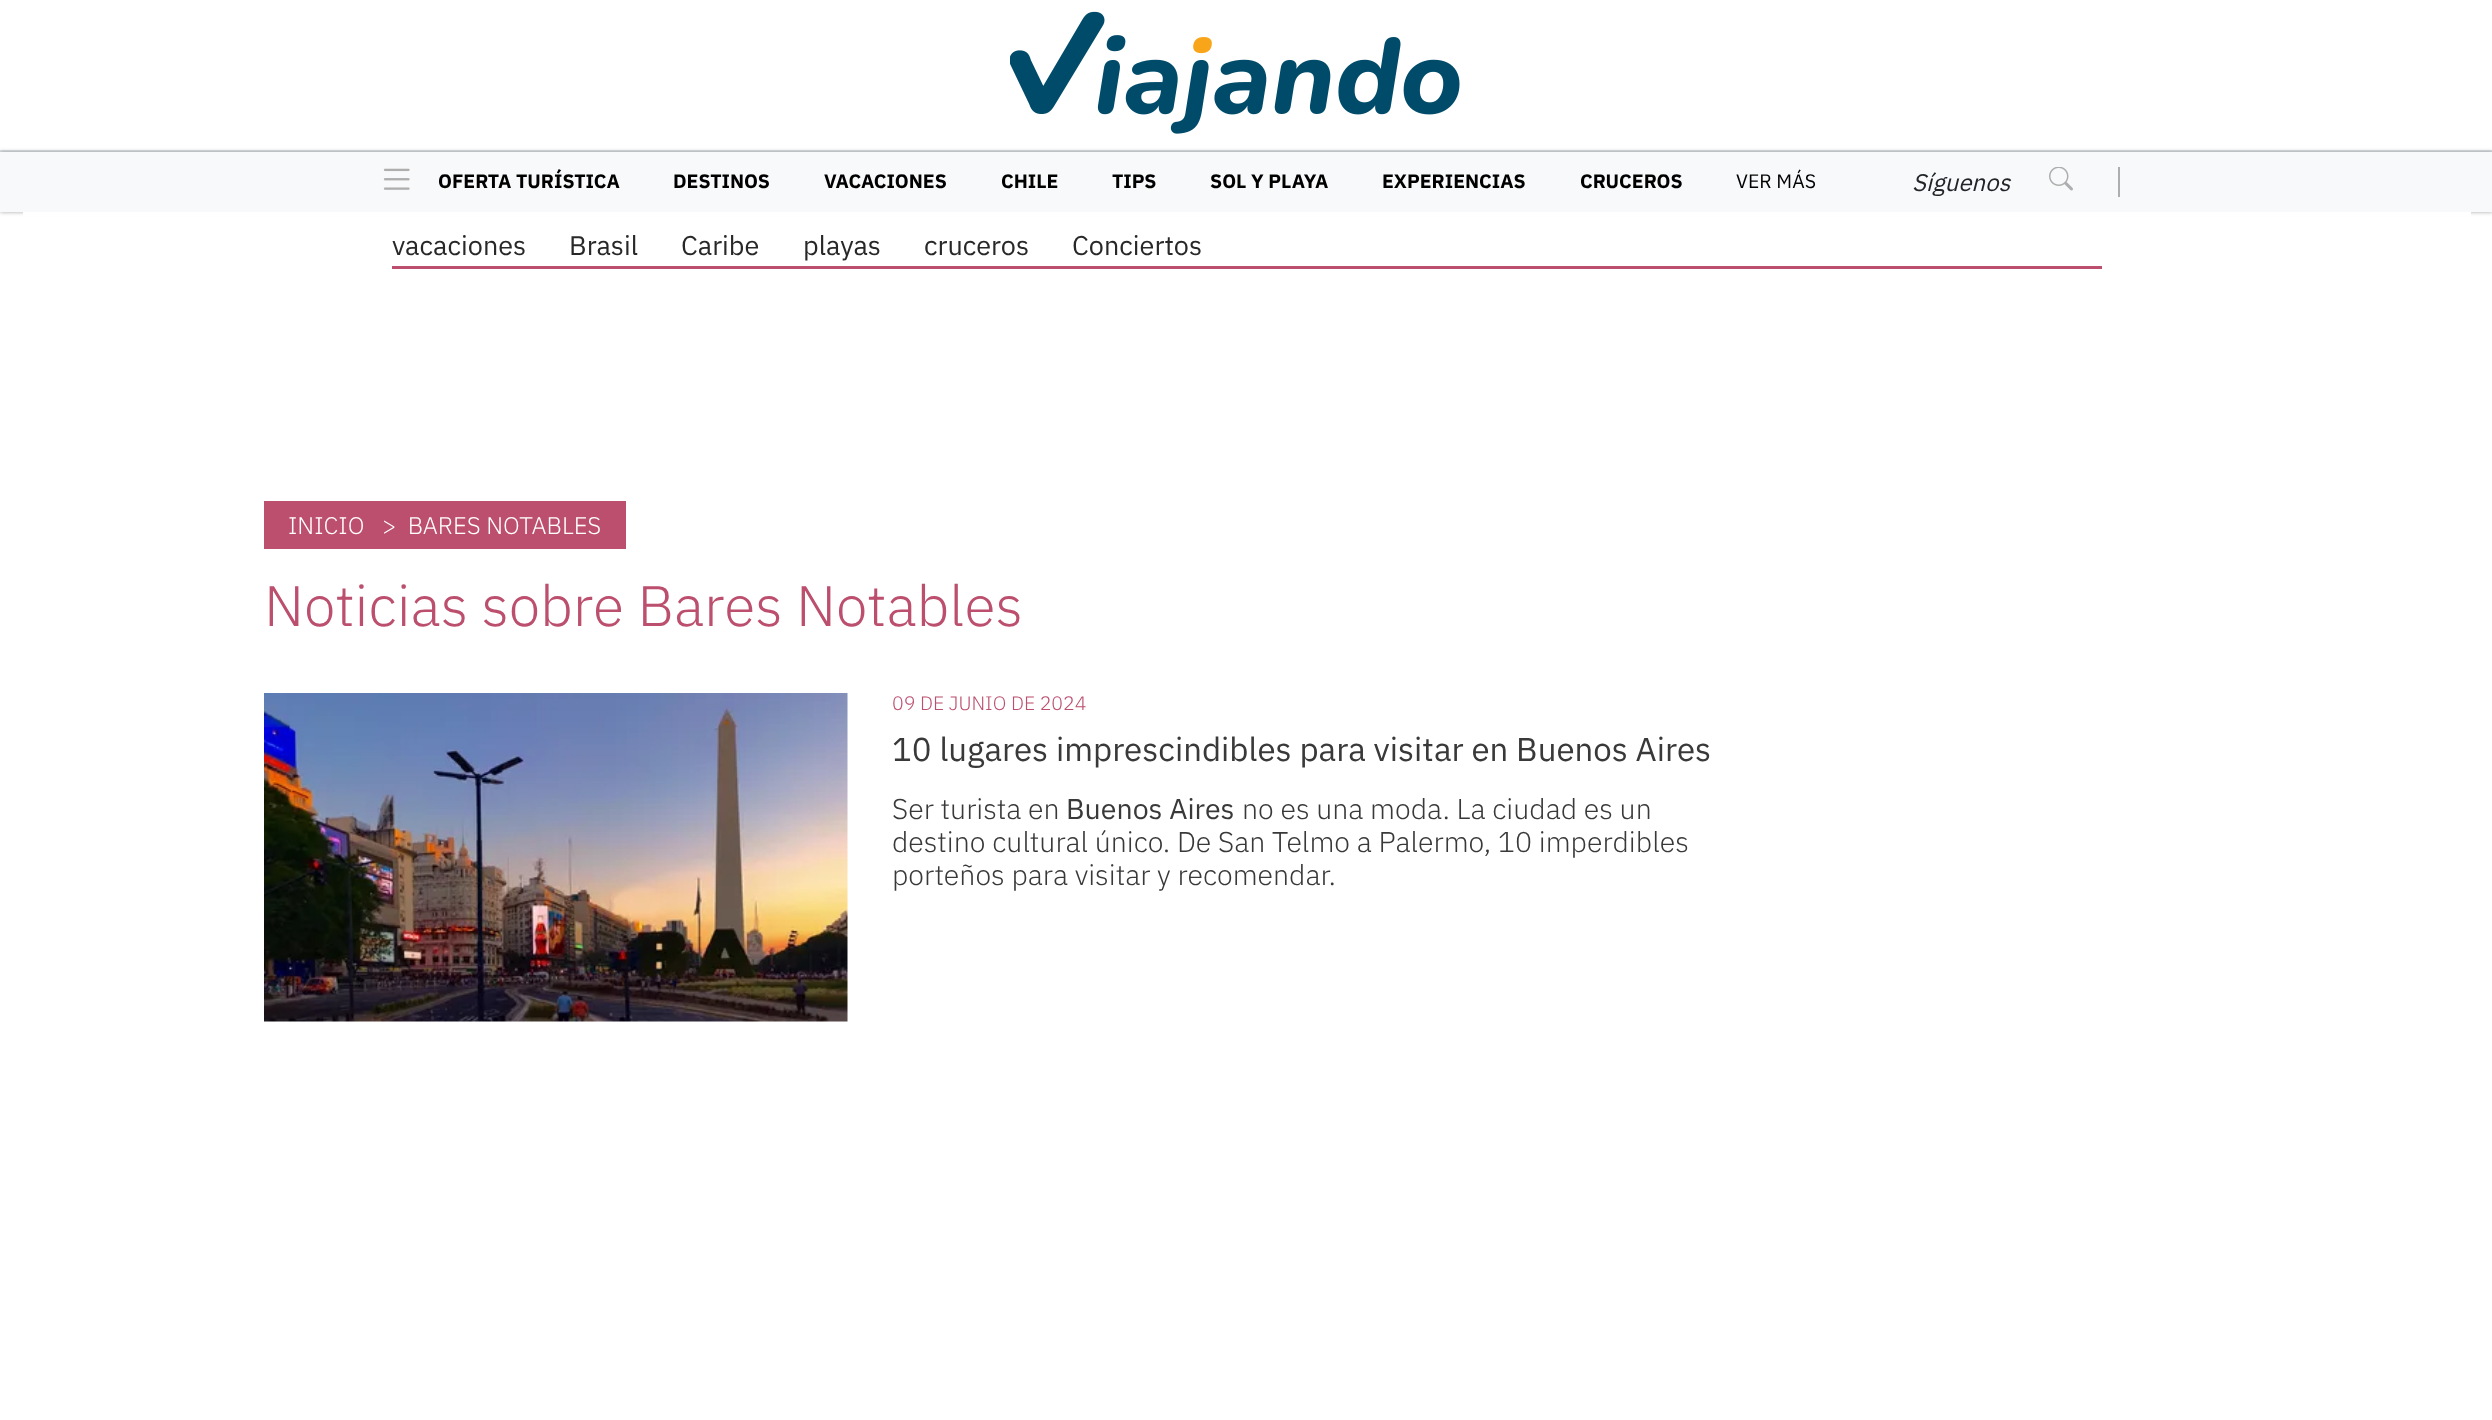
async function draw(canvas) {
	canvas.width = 2492;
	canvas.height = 1420;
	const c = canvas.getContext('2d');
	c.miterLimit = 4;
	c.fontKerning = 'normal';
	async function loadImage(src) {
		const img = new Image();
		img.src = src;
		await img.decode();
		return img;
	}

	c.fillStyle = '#fff';
	c.fillRect(0, 0, 2492, 1420);
	c.fillStyle = '#dee2e6';
	c.fillRect(0, 150, 2492, 2);
	c.drawImage(await loadImage('img1.png'), 1010, 11, 450, 123);
	c.fillStyle = '#00000059';
	c.filter = 'blur(2px)';
	c.beginPath();
	c.rect(0, 152, 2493, 60);
	c.fill();
	c.filter = 'none';
	c.fillStyle = '#f8f9fa';
	c.fillRect(0, 152, 2492, 60);
	c.drawImage(await loadImage('img2.png'), 383, 168, 27, 22);
	c.font = 'bold 19.5px IBM Plex Sans';
	c.fillStyle = '#000';
	for (const [text, x, y] of [
		['OFERTA TURÍSTICA', 438, 188],
		['DESTINOS', 673, 188],
		['VACACIONES', 824, 188],
		['CHILE', 1001, 188],
		['TIPS', 1112, 188],
		['SOL Y PLAYA', 1210, 188],
		['EXPERIENCIAS', 1382, 188],
		['CRUCEROS', 1580, 188],
	]) {
		c.fillText(text, x, y);
	}
	c.font = '19.5px IBM Plex Sans';
	c.fillText('VER MÁS', 1736, 188);
	c.font = 'italic 24px IBM Plex Sans';
	c.fillStyle = '#212529';
	c.fillText('Síguenos', 1912, 191);
	c.drawImage(await loadImage('img3.png'), 2049, 167, 24, 24);
	for (const [x, y, w, h, color] of [
		[2118, 167, 2, 30, '#aeaeae'],
		[23, 212, 2448, 4, '#fff'],
		[392, 266, 1710, 3, '#bc4f6e'],
	]) {
		c.fillStyle = color;
		c.fillRect(x, y, w, h);
	}
	c.font = '27px IBM Plex Sans';
	c.fillStyle = '#282828';
	for (const [text, x, y] of [
		['vacaciones', 392, 255],
		['Brasil', 569, 255],
		['Caribe', 681, 255],
		['playas', 803, 255],
		['cruceros', 924, 255],
		['Conciertos', 1072, 255],
	]) {
		c.fillText(text, x, y);
	}
	c.fillStyle = '#bc4f6e';
	c.fillRect(264, 501, 362, 48);
	c.font = '300 24px IBM Plex Sans';
	c.fillStyle = '#fff';
	c.fillText('INICIO', 288, 534);
	c.fillText('>  BARES NOTABLES', 382, 534);
	c.font = '300 57.1px IBM Plex Sans';
	c.fillStyle = '#bc4f6e';
	c.fillText('Noticias sobre Bares Notables', 264, 626);
	c.drawImage(await loadImage('img4.png'), 264, 693, 584, 329);
	c.font = '300 19.5px IBM Plex Sans';
	c.fillText('09 DE JUNIO DE 2024', 892, 710);
	c.font = '33px IBM Plex Sans';
	c.fillStyle = '#393939';
	c.fillText('10 lugares imprescindibles para visitar en Buenos Aires', 892, 761);
	c.font = '300 28.5px IBM Plex Sans';
	c.fillText('Ser turista en', 892, 819);
	c.font = '28.5px IBM Plex Sans';
	c.fillText('Buenos Aires', 1066, 819);
	c.font = '300 28.5px IBM Plex Sans';
	for (const [text, x, y] of [
		['no es una moda. La ciudad es un', 1242, 819],
		['destino cultural único. De San Telmo a Palermo, 10 imperdibles', 892, 852],
		['porteños para visitar y recomendar.', 892, 885],
	]) {
		c.fillText(text, x, y);
	}
}

draw(document.querySelector('canvas'));
